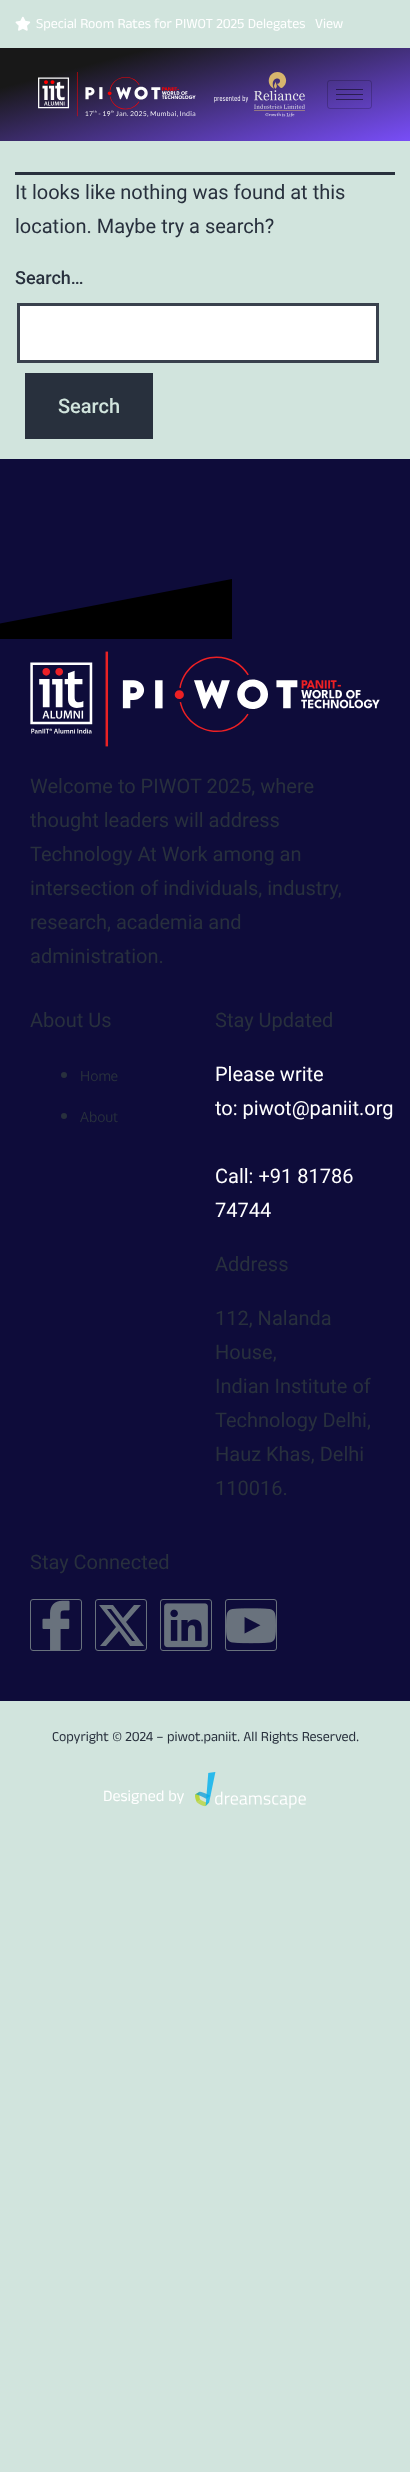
async function draw(canvas) {
	canvas.width = 410;
	canvas.height = 2472;
	const c = canvas.getContext('2d');
	c.miterLimit = 4;
	c.fontKerning = 'normal';
	async function loadImage(src) {
		const img = new Image();
		img.src = src;
		await img.decode();
		return img;
	}
	let gradient;

	c.fillStyle = '#d1e4dd';
	c.fillRect(0, 0, 410, 2472);
	c.drawImage(await loadImage('img1.png'), 15, 16, 16, 15);
	c.font = '14px Anek Malayalam';
	c.fillStyle = '#fff';
	c.fillText('Special Room Rates for PIWOT 2025 Delegates', 36, 28);
	c.fillText('View', 315, 28);
	gradient = c.createLinearGradient(180, -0.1, 230, 189);
	gradient.addColorStop(0.2, '#181818');
	gradient.addColorStop(1, '#7242faed');
	c.fillStyle = gradient;
	c.fillRect(0, 48, 410, 93);
	c.drawImage(await loadImage('img2.png'), 38, 72, 267, 45);
	c.beginPath();
	c.roundRect(327.5, 80.5, 44, 28, 2.5);
	c.strokeStyle = '#00000033';
	c.stroke();
	for (const [x, y, w, h, color] of [
		[336, 89, 27, 1, '#00000080'],
		[336, 94, 27, 1, '#00000080'],
		[336, 99, 27, 1, '#00000080'],
		[15, 172, 380, 3, '#28303d'],
	]) {
		c.fillStyle = color;
		c.fillRect(x, y, w, h);
	}
	c.font = '20px Roboto';
	c.fillText('It looks like nothing was found at this', 15, 199);
	c.fillText('location. Maybe try a search?', 15, 233);
	c.font = '500 18px Roboto';
	c.fillText('Search…', 15, 284);
	c.fillStyle = '#fff';
	c.beginPath();
	c.rect(18.5, 304.5, 359, 57);
	c.fill();
	c.strokeStyle = '#39414d';
	c.lineWidth = 3;
	c.stroke();
	c.fillStyle = '#28303d';
	c.fillRect(25, 373, 128, 66);
	c.font = '500 20px Roboto';
	c.fillStyle = '#d1e4dd';
	c.fillText('Search', 58, 413);
	c.fillStyle = '#0e0c3a';
	c.fillRect(0, 459, 410, 1242);
	c.fillStyle = '#000';
	c.beginPath();
	c.moveTo(-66, 636);
	c.lineTo(232, 579);
	c.lineTo(232, 639);
	c.lineTo(-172, 639);
	c.lineTo(-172, 579);
	c.closePath();
	c.fill();
	c.drawImage(await loadImage('img3.png'), 30, 651, 350, 96);
	c.font = '20px Roboto';
	c.fillStyle = '#28303d';
	for (const [text, x, y] of [
		['Welcome to PIWOT 2025, where', 30, 793],
		['thought leaders will address', 30, 827],
		['Technology At Work among an', 30, 861],
		['intersection of individuals, industry,', 30, 895],
		['research, academia and', 30, 929],
		['administration.', 30, 963],
		['About Us', 30, 1027],
	]) {
		c.fillText(text, x, y);
	}
	c.beginPath();
	c.arc(64, 1075, 3, 0, 2 * Math.PI);
	c.fill();
	c.font = '14px Oxygen';
	c.fillText('Home', 80, 1081);
	c.beginPath();
	c.arc(64, 1116, 3, 0, 2 * Math.PI);
	c.fill();
	c.fillText('About', 80, 1122);
	c.font = '20px Roboto';
	c.fillText('Stay Updated', 215, 1027);
	c.fillStyle = '#fff';
	for (const [text, x, y] of [
		['Please write', 215, 1081],
		['to: piwot@paniit.org', 215, 1115],
		['Call: +91 81786', 215, 1183],
		['74744', 215, 1217],
	]) {
		c.fillText(text, x, y);
	}
	c.fillStyle = '#28303d';
	for (const [text, x, y] of [
		['Address', 215, 1271],
		['112, Nalanda', 215, 1325],
		['House,', 215, 1359],
		['Indian Institute of', 215, 1393],
		['Technology Delhi,', 215, 1427],
		['Hauz Khas, Delhi', 215, 1461],
		['110016.', 215, 1495],
		['Stay Connected', 30, 1569],
	]) {
		c.fillText(text, x, y);
	}
	c.beginPath();
	c.roundRect(30.5, 1599.5, 51, 51, 2.5);
	c.strokeStyle = '#69727d';
	c.lineWidth = 1;
	c.stroke();
	c.drawImage(await loadImage('img4.png'), 42, 1600, 28, 50);
	c.beginPath();
	c.roundRect(95.5, 1599.5, 51, 51, 2.5);
	c.stroke();
	c.fillStyle = '#69727d';
	c.beginPath();
	c.moveTo(134, 1605);
	c.lineTo(141, 1605);
	c.lineTo(126, 1622);
	c.lineTo(144, 1646);
	c.lineTo(130, 1646);
	c.lineTo(119, 1631);
	c.lineTo(106, 1646);
	c.lineTo(100, 1646);
	c.lineTo(116, 1627);
	c.lineTo(99, 1605);
	c.lineTo(113, 1605);
	c.lineTo(123, 1618);
	c.closePath();
	c.moveTo(132, 1641);
	c.lineTo(135, 1641);
	c.lineTo(111, 1609);
	c.lineTo(107, 1609);
	c.closePath();
	c.fill();
	c.beginPath();
	c.roundRect(160.5, 1599.5, 51, 51, 2.5);
	c.stroke();
	c.drawImage(await loadImage('img5.png'), 164, 1603, 44, 45);
	c.beginPath();
	c.roundRect(225.5, 1599.5, 51, 51, 2.5);
	c.stroke();
	c.drawImage(await loadImage('img6.png'), 226, 1608, 50, 36);
	c.font = '14px Anek Malayalam';
	c.fillStyle = '#28303d';
	c.fillText('Copyright © 2024 – piwot.paniit. All Rights Reserved.', 52, 1741);
	c.font = '16px Anek Malayalam';
	c.fillStyle = '#fff';
	c.fillText('Designed by', 103, 1801);
	c.drawImage(await loadImage('img7.png'), 195, 1772, 111, 37);
}

draw(document.querySelector('canvas'));
